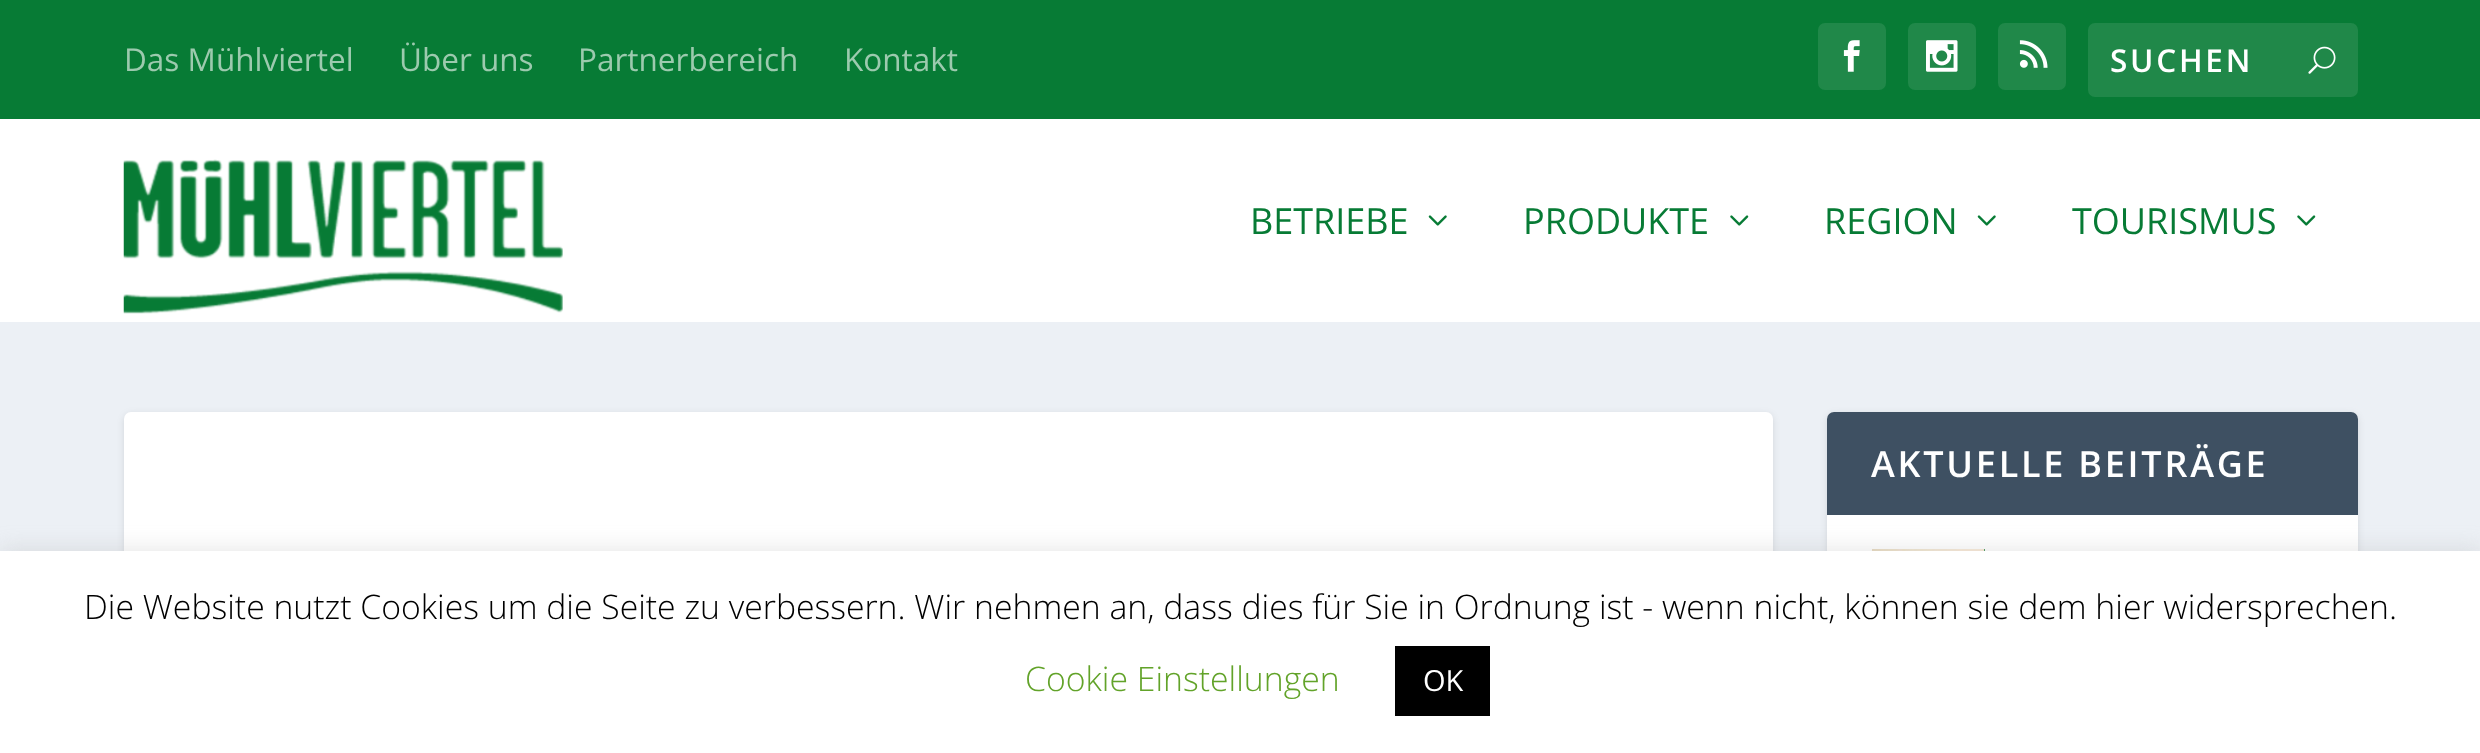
async function draw(canvas) {
	canvas.width = 2480;
	canvas.height = 753;
	const c = canvas.getContext('2d');
	c.miterLimit = 4;
	c.fontKerning = 'normal';
	async function loadImage(src) {
		const img = new Image();
		img.src = src;
		await img.decode();
		return img;
	}

	c.fillStyle = '#ecf0f5';
	c.fillRect(0, 0, 2480, 753);
	c.fillStyle = '#077b35';
	c.fillRect(0, 0, 2480, 119);
	c.font = '31.5px Open Sans';
	c.fillStyle = '#9ccaae';
	for (const [text, x, y] of [
		['Das Mühlviertel', 124, 71],
		['Über uns', 399, 71],
		['Partnerbereich', 578, 71],
		['Kontakt', 844, 71],
	]) {
		c.fillText(text, x, y);
	}
	c.fillStyle = '#208849';
	c.beginPath();
	c.roundRect(1818, 23, 68, 67, 7);
	c.fill();
	c.drawImage(await loadImage('img1.png'), 1843, 40, 17, 32);
	c.beginPath();
	c.roundRect(1908, 23, 68, 67, 7);
	c.fill();
	c.drawImage(await loadImage('img2.png'), 1926, 40, 32, 32);
	c.beginPath();
	c.roundRect(1998, 23, 68, 67, 7);
	c.fill();
	c.drawImage(await loadImage('img3.png'), 2019, 40, 29, 28);
	c.beginPath();
	c.roundRect(2088, 23, 270, 74, 7);
	c.fill();
	c.letterSpacing = '2.75px';
	c.font = '600 31.5px Open Sans';
	c.fillStyle = '#fff';
	c.fillText('SUCHEN', 2110, 72);
	c.drawImage(await loadImage('img4.png'), 2308, 46, 28, 28);
	c.fillRect(0, 119, 2480, 203);
	c.drawImage(await loadImage('img5.png'), 123, 159, 440, 155);
	c.letterSpacing = '0px';
	c.font = '36px Open Sans';
	c.fillStyle = '#077b35';
	c.fillText('BETRIEBE', 1250, 234);
	c.drawImage(await loadImage('img6.png'), 1428, 215, 19, 11);
	c.fillText('PRODUKTE', 1523, 234);
	c.drawImage(await loadImage('img7.png'), 1730, 215, 19, 11);
	c.fillText('REGION', 1824, 234);
	c.drawImage(await loadImage('img6.png'), 1977, 215, 19, 11);
	c.fillText('TOURISMUS', 2072, 234);
	c.drawImage(await loadImage('img7.png'), 2297, 215, 19, 11);
	c.fillStyle = '#0000001a';
	c.filter = 'blur(3.5px)';
	c.beginPath();
	c.roundRect(124, 414, 1649, 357, 7);
	c.fill();
	c.filter = 'none';
	c.fillStyle = '#fff';
	c.beginPath();
	c.roundRect(124, 412, 1649, 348, 7);
	c.fill();
	c.fillStyle = '#0000001a';
	c.filter = 'blur(3.5px)';
	c.beginPath();
	c.roundRect(1827, 414, 531, 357, 7);
	c.fill();
	c.filter = 'none';
	c.fillStyle = '#fff';
	c.beginPath();
	c.roundRect(1827, 412, 531, 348, 7);
	c.fill();
	c.fillStyle = '#3e5062';
	c.beginPath();
	c.roundRect(1827, 412, 531, 103, [7, 7, 0, 0]);
	c.fill();
	c.letterSpacing = '2.75px';
	c.font = '600 36px Open Sans';
	c.fillStyle = '#fff';
	c.fillText('AKTUELLE BEITRÄGE', 1871, 477);
	c.fillStyle = '#077b35';
	c.fillRect(1984, 549, 1, 2);
	c.drawImage(await loadImage('img8.png'), 1872, 549, 113, 2);
	c.fillStyle = '#acabab4d';
	c.filter = 'blur(11px)';
	c.beginPath();
	c.rect(0, 549, 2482, 203);
	c.fill();
	c.filter = 'none';
	c.fillStyle = '#fff';
	c.fillRect(0, 551, 2480, 202);
	c.letterSpacing = '0px';
	c.font = '300 33.75px Open Sans';
	c.fillStyle = '#000';
	c.fillText('Die Website nutzt Cookies um die Seite zu verbessern. Wir nehmen an, dass dies für Sie in Ordnung ist - wenn nicht, können sie dem hier widersprechen.', 84, 619);
	c.fillStyle = '#62a329';
	c.fillText('Cookie Einstellungen', 1025, 691);
	c.fillStyle = '#000';
	c.fillRect(1395, 646, 95, 70);
	c.font = '29px Open Sans';
	c.fillStyle = '#fff';
	c.fillText('OK', 1423, 691);
}

draw(document.querySelector('canvas'));
